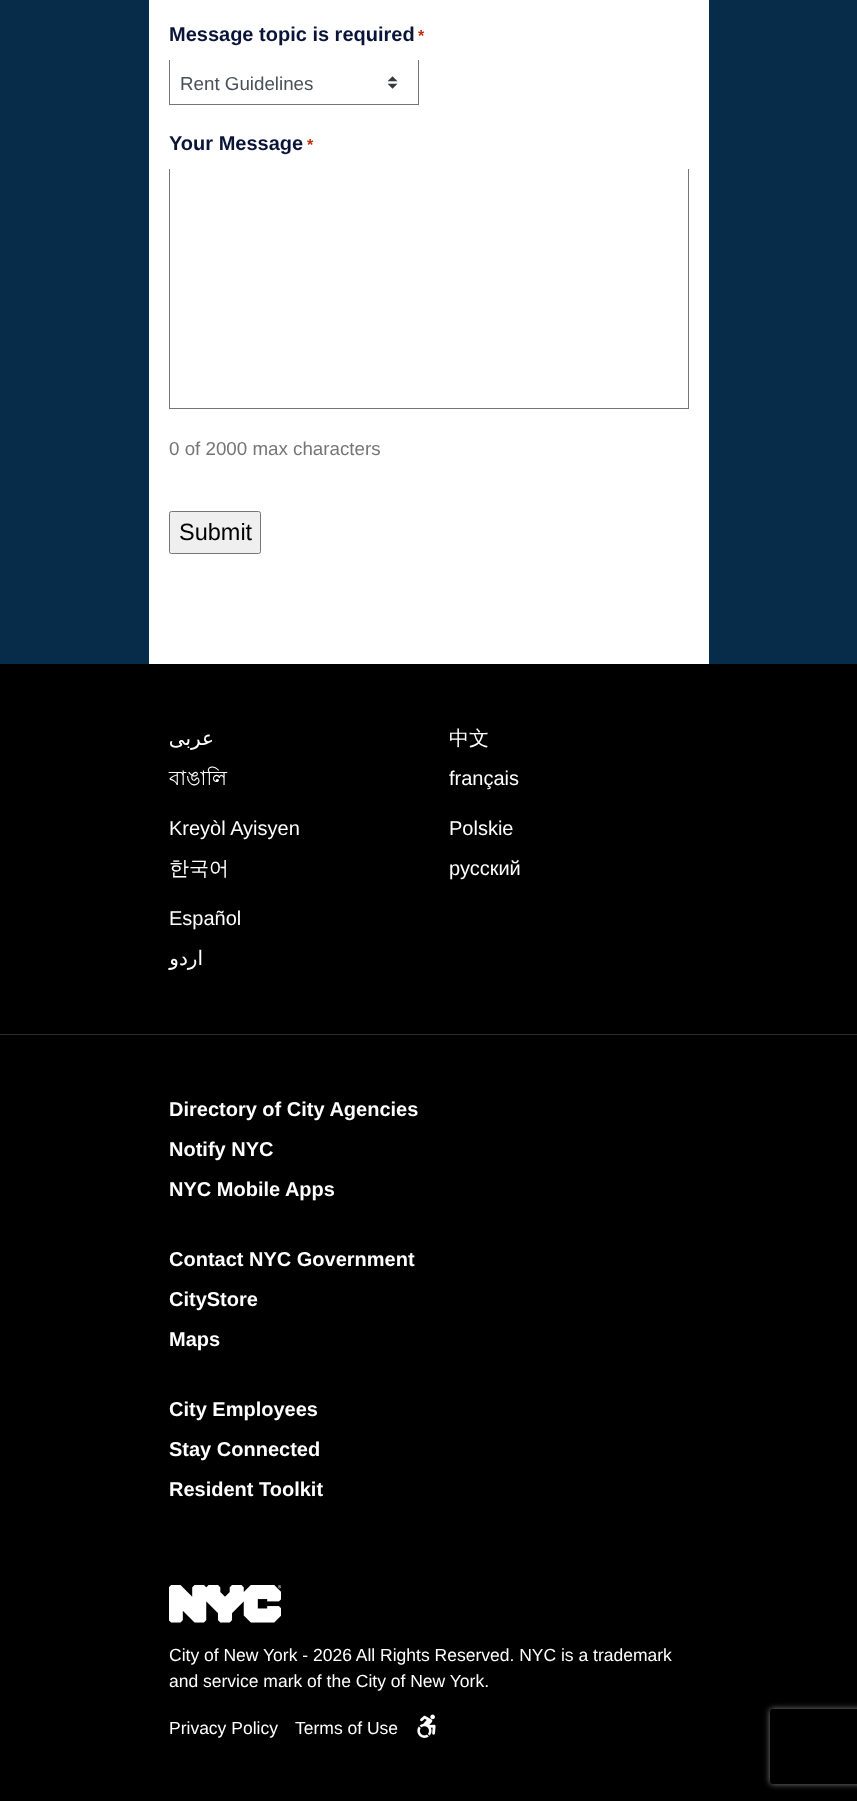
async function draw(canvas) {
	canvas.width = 857;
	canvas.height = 1801;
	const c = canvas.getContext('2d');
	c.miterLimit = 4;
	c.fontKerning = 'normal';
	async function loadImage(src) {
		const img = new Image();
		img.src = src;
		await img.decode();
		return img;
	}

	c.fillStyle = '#072c4a';
	c.fillRect(0, 0, 857, 1801);
	c.fillStyle = '#fff';
	c.fillRect(149, 0, 560, 664);
	c.font = 'bold 20px Liberation Sans';
	c.fillStyle = '#0a1438';
	c.fillText('Message topic is required', 169, 41);
	c.font = 'bold 16px Liberation Sans';
	c.fillStyle = '#c02b0a';
	c.fillText('*', 418, 41);
	c.drawImage(await loadImage('img1.png'), 388, 76, 10, 13);
	for (const [x, y, w, h, color] of [
		[418, 60, 1, 45, '#777677'],
		[169, 104, 250, 1, '#777677'],
		[169, 60, 1, 45, '#777677'],
	]) {
		c.fillStyle = color;
		c.fillRect(x, y, w, h);
	}
	c.font = '18.75px Liberation Sans';
	c.fillStyle = '#495057';
	c.fillText('Rent Guidelines', 180, 90);
	c.font = 'bold 20px Liberation Sans';
	c.fillStyle = '#0a1438';
	c.fillText('Your Message', 169, 150);
	c.font = 'bold 16px Liberation Sans';
	c.fillStyle = '#c02b0a';
	c.fillText('*', 307, 150);
	for (const [x, y, w, h, color] of [
		[688, 169, 1, 240, '#767676'],
		[169, 408, 520, 1, '#767676'],
		[169, 169, 1, 240, '#767676'],
	]) {
		c.fillStyle = color;
		c.fillRect(x, y, w, h);
	}
	c.font = '18.75px Liberation Sans';
	c.fillText('0 of 2000 max characters', 169, 455);
	c.fillStyle = '#000';
	c.fillRect(0, 664, 857, 1137);
	c.save();
	c.beginPath();
	c.moveTo(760, 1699);
	c.lineTo(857, 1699);
	c.lineTo(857, 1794);
	c.lineTo(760, 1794);
	c.closePath();
	c.moveTo(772.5, 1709);
	c.lineTo(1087.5, 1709);
	c.bezierCurveTo(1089, 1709, 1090, 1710, 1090, 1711.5);
	c.lineTo(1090, 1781.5);
	c.bezierCurveTo(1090, 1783, 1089, 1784, 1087.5, 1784);
	c.lineTo(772.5, 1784);
	c.bezierCurveTo(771, 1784, 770, 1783, 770, 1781.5);
	c.lineTo(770, 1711.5);
	c.bezierCurveTo(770, 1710, 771, 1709, 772.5, 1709);
	c.closePath();
	c.clip('evenodd');
	c.fillStyle = '#808080';
	c.filter = 'blur(3px)';
	c.beginPath();
	c.roundRect(770, 1709, 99, 75, 2.5);
	c.fill();
	c.filter = 'none';
	c.restore();
	c.fillStyle = '#efefef';
	c.beginPath();
	c.roundRect(169.5, 511.5, 91, 42, 2);
	c.fill();
	c.strokeStyle = '#767676';
	c.stroke();
	c.font = '23.5px Liberation Sans';
	c.fillStyle = '#000';
	c.fillText('Submit', 179, 540);
	c.direction = 'rtl';
	c.font = '20px DejaVu Sans';
	c.fillStyle = '#fff';
	c.fillText('عربى', 214, 745);
	c.direction = 'ltr';
	c.font = '20px Lohit Bengali';
	c.fillText('বাঙালি', 169, 785);
	c.font = '500 20px WenQuanYi Zen Hei';
	c.fillText('中文', 449, 745);
	c.font = '20px Liberation Sans';
	c.fillText('français', 449, 785);
	c.fillText('Kreyòl Ayisyen', 169, 835);
	c.font = '500 20px WenQuanYi Zen Hei';
	c.fillText('한국어', 169, 875);
	c.font = '20px Liberation Sans';
	for (const [text, x, y] of [
		['Polskie', 449, 835],
		['русский', 449, 875],
		['Español', 169, 925],
	]) {
		c.fillText(text, x, y);
	}
	c.direction = 'rtl';
	c.font = '20px DejaVu Sans';
	c.fillText('اردو', 203, 965);
	c.fillStyle = '#2c2d2e';
	c.fillRect(0, 1034, 857, 1);
	c.direction = 'ltr';
	c.font = 'bold 20px Liberation Sans';
	c.fillStyle = '#fff';
	for (const [text, x, y] of [
		['Directory of City Agencies', 169, 1116],
		['Notify NYC', 169, 1156],
		['NYC Mobile Apps', 169, 1196],
		['Contact NYC Government', 169, 1266],
		['CityStore', 169, 1306],
		['Maps', 169, 1346],
		['City Employees', 169, 1416],
		['Stay Connected', 169, 1456],
		['Resident Toolkit', 169, 1496],
	]) {
		c.fillText(text, x, y);
	}
	c.drawImage(await loadImage('img2.png'), 169, 1585, 112, 38);
	c.font = '17.5px Liberation Sans';
	for (const [text, x, y] of [
		['City of New York - 2026 All Rights Reserved. NYC is a trademark', 169, 1661],
		['and service mark of the City of New York.', 169, 1687],
		['Privacy Policy', 169, 1734],
		['Terms of Use', 295, 1734],
	]) {
		c.fillText(text, x, y);
	}
	c.drawImage(await loadImage('img3.png'), 417, 1714, 19, 24);
}

draw(document.querySelector('canvas'));
